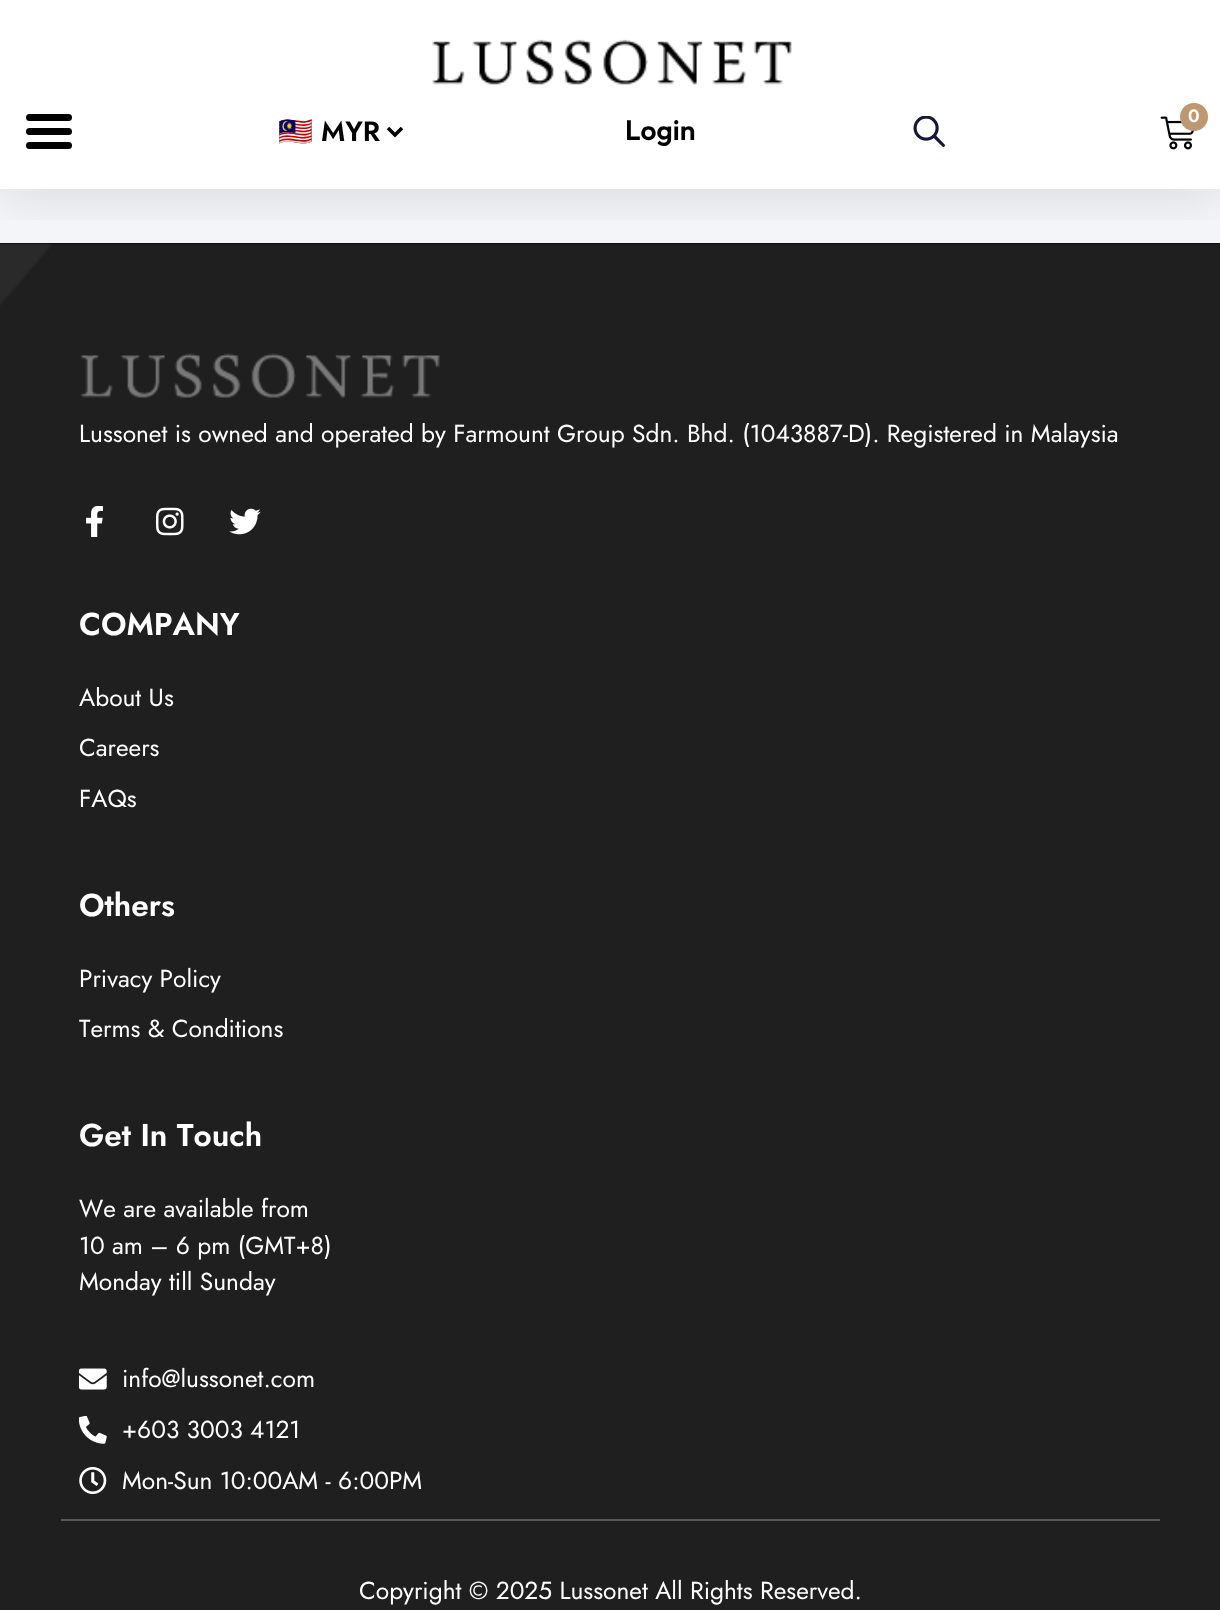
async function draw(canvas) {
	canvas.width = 1220;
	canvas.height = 1610;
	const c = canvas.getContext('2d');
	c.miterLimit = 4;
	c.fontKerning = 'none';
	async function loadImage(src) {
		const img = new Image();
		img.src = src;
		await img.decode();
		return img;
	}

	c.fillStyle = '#f3f5f8';
	c.fillRect(0, 0, 1220, 1610);
	c.fillStyle = '#fff';
	c.fillRect(0, 0, 1220, 189);
	c.fillStyle = '#000';
	c.fillRect(0, 243, 1220, 3);
	c.drawImage(await loadImage('img4.png'), 0, 243, 1220, 1367);
	c.save();
	c.beginPath();
	c.rect(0, 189, 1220, 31);
	c.clip();
	c.fillStyle = '#0000001a';
	c.filter = 'blur(26px)';
	c.beginPath();
	c.rect(0, 9, 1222, 189);
	c.fill();
	c.filter = 'none';
	c.restore();
	c.drawImage(await loadImage('img1.png'), 432, 39, 360, 46);
	c.beginPath();
	c.roundRect(26, 128, 46, 7, 3.5);
	c.fill();
	c.beginPath();
	c.roundRect(26, 114, 46, 7, 3.5);
	c.fill();
	c.beginPath();
	c.roundRect(26, 142, 46, 7, 3.5);
	c.fill();
	c.beginPath();
	c.moveTo(388, 128);
	c.lineTo(395, 135);
	c.lineTo(402, 128);
	c.strokeStyle = '#000';
	c.lineWidth = 3.5;
	c.stroke();
	c.save();
	c.beginPath();
	c.rect(278, 110, 104, 44);
	c.clip();
	c.font = 'bold 28px Noto Color Emoji';
	c.fillText('🇲🇾', 278, 141);
	c.restore();
	c.font = '600 28px Jost';
	c.fillText('MYR', 321, 141);
	c.font = '600 28px Outfit';
	c.fillText('Login', 625, 140);
	c.drawImage(await loadImage('img2.png'), 913, 116, 32, 31);
	c.drawImage(await loadImage('img3.png'), 1160, 116, 34, 34);
	c.fillStyle = '#bd9870';
	c.beginPath();
	c.arc(1194, 117, 14, 0, 2 * Math.PI);
	c.fill();
	c.font = '600 18px Jost';
	c.fillStyle = '#fff';
	c.fillText('0', 1188, 122);
	c.drawImage(await loadImage('img5.png'), 80, 353, 360, 45);
	c.font = '24.5px Jost';
	c.fillText('Lussonet is owned and operated by Farmount Group Sdn. Bhd. (1043887-D). Registered in Malaysia', 79, 442);
	c.drawImage(await loadImage('img6.png'), 86, 506, 17, 31);
	c.drawImage(await loadImage('img7.png'), 155, 507, 29, 29);
	c.drawImage(await loadImage('img8.png'), 229, 508, 32, 27);
	c.font = '600 31.5px Jost';
	c.fillText('COMPANY', 79, 635);
	c.font = '24.5px Jost';
	for (const [text, x, y] of [
		['About Us', 79, 706],
		['Careers', 79, 756],
		['FAQs', 79, 807],
	]) {
		c.fillText(text, x, y);
	}
	c.font = '600 31.5px Jost';
	c.fillText('Others', 79, 916);
	c.font = '24.5px Jost';
	c.fillText('Privacy Policy', 79, 987);
	c.fillText('Terms & Conditions', 79, 1037);
	c.font = '600 31.5px Jost';
	c.fillText('Get In Touch', 79, 1146);
	c.font = '24.5px Jost';
	for (const [text, x, y] of [
		['We are available from', 79, 1217],
		['10 am – 6 pm (GMT+8)', 79, 1254],
		['Monday till Sunday', 79, 1290],
	]) {
		c.fillText(text, x, y);
	}
	c.drawImage(await loadImage('img9.png'), 79, 1368, 28, 22);
	c.fillText('info@lussonet.com', 122, 1387);
	c.drawImage(await loadImage('img10.png'), 79, 1416, 28, 28);
	c.fillText('+603 3003 4121', 122, 1438);
	c.drawImage(await loadImage('img11.png'), 79, 1467, 28, 28);
	c.fillText('Mon-Sun 10:00AM - 6:00PM', 122, 1489);
	c.fillStyle = '#55595c';
	c.fillRect(61, 1519, 1099, 2);
	c.fillStyle = '#fff';
	c.fillText('Copyright © 2025 Lussonet All Rights Reserved.', 359, 1599);
}

draw(document.querySelector('canvas'));
